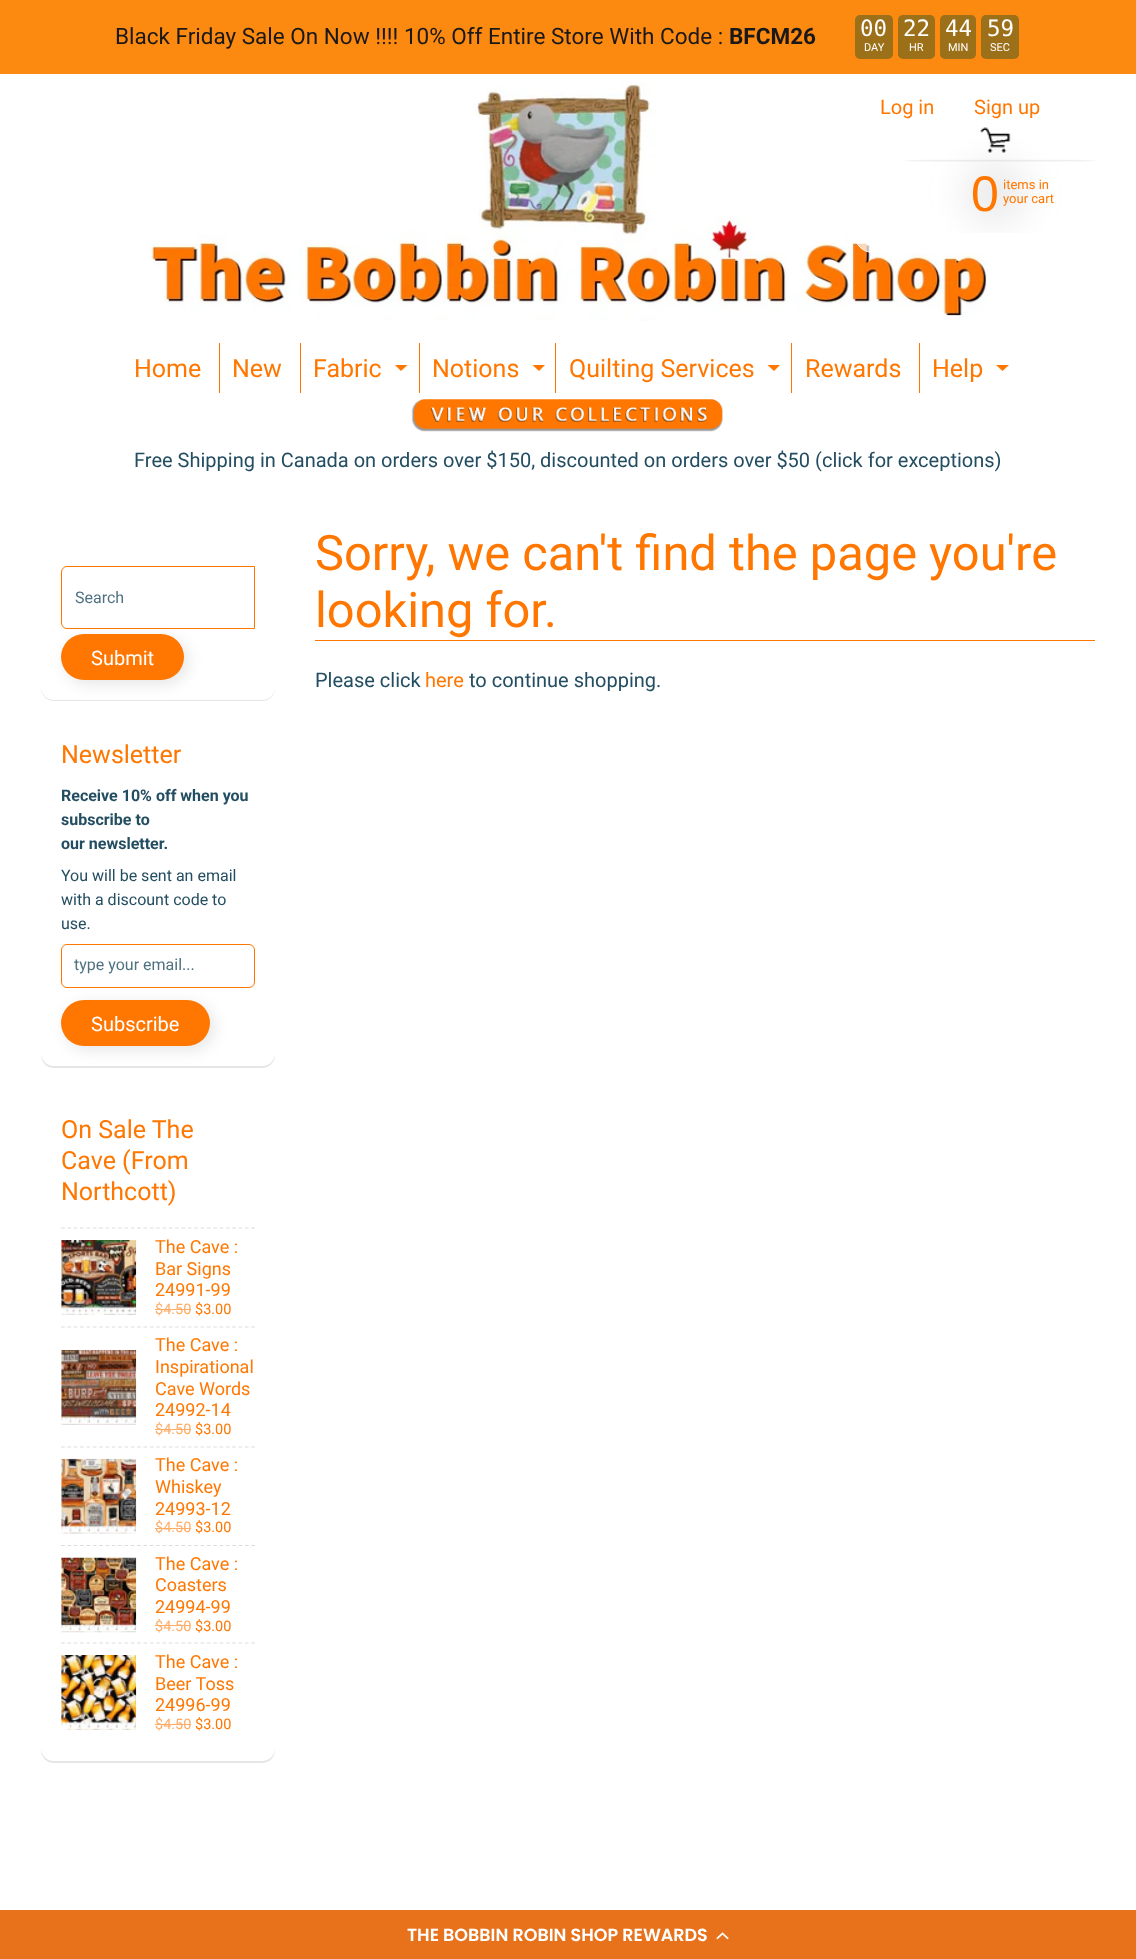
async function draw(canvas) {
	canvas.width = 1136;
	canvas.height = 1959;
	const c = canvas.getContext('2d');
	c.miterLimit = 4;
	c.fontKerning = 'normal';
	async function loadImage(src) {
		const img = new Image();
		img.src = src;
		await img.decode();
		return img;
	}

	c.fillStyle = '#fff';
	c.fillRect(0, 0, 1136, 1959);
	c.fillStyle = '#fc8a11';
	c.fillRect(0, 0, 1136, 74);
	c.font = '22.5px Roboto';
	c.fillStyle = '#1a1818';
	c.fillText('Black Friday Sale On Now !!!! 10% Off Entire Store With Code :', 115, 44);
	c.font = 'bold 22.5px Roboto';
	c.fillText('BFCM26', 729, 44);
	c.fillStyle = '#9c6f19';
	c.beginPath();
	c.roundRect(855, 15, 38, 44, 5);
	c.fill();
	c.font = '22.5px DejaVu Sans Mono';
	c.fillStyle = '#fff';
	c.fillText('00', 860, 36);
	c.font = '11px Roboto';
	c.fillText('DAY', 864, 51);
	c.fillStyle = '#9c6f19';
	c.beginPath();
	c.roundRect(898, 15, 37, 44, 5);
	c.fill();
	c.font = '22.5px DejaVu Sans Mono';
	c.fillStyle = '#fff';
	c.fillText('22', 903, 36);
	c.font = '11px Roboto';
	c.fillText('HR', 909, 51);
	c.fillStyle = '#9c6f19';
	c.beginPath();
	c.roundRect(940, 15, 36, 44, 5);
	c.fill();
	c.font = '22.5px DejaVu Sans Mono';
	c.fillStyle = '#fff';
	c.fillText('44', 945, 36);
	c.font = '11px Roboto';
	c.fillText('MIN', 948, 51);
	c.fillStyle = '#9c6f19';
	c.beginPath();
	c.roundRect(981, 15, 38, 44, 5);
	c.fill();
	c.font = '22.5px DejaVu Sans Mono';
	c.fillStyle = '#fff';
	c.fillText('59', 987, 36);
	c.font = '11px Roboto';
	c.fillText('SEC', 990, 51);
	c.drawImage(await loadImage('img1.png'), 147, 82, 841, 239);
	c.fillStyle = '#ffffffb3';
	c.beginPath();
	c.roundRect(854.5, 93.5, 266, 159, 18.5);
	c.fill();
	c.strokeStyle = '#fff';
	c.stroke();
	c.font = '20px Roboto';
	c.fillStyle = '#f70';
	c.fillText('Log in', 880, 114);
	c.fillText('Sign up', 974, 114);
	c.drawImage(await loadImage('img2.png'), 905, 127, 191, 106);
	c.font = '50px Liberation Sans';
	c.fillText('0', 971, 211);
	c.font = '13px Roboto';
	c.fillText('items in', 1003, 189);
	c.fillText('your cart', 1003, 203);
	c.font = '25px Roboto';
	c.fillText('Home', 134, 377);
	c.fillRect(219, 343, 1, 50);
	c.fillText('New', 232, 377);
	c.fillRect(300, 343, 1, 50);
	c.fillText('Fabric', 313, 377);
	c.beginPath();
	c.moveTo(395, 365);
	c.lineTo(407.5, 365);
	c.lineTo(401, 371);
	c.closePath();
	c.fill();
	c.fillRect(419, 343, 1, 50);
	c.fillText('Notions', 432, 377);
	c.beginPath();
	c.moveTo(532.5, 365);
	c.lineTo(545, 365);
	c.lineTo(539, 371);
	c.closePath();
	c.fill();
	c.fillRect(555, 343, 1, 50);
	c.fillText('Quilting Services', 569, 377);
	c.beginPath();
	c.moveTo(767.5, 365);
	c.lineTo(780, 365);
	c.lineTo(774, 371);
	c.closePath();
	c.fill();
	c.fillRect(791, 343, 1, 50);
	c.fillText('Rewards', 805, 377);
	c.fillRect(919, 343, 1, 50);
	c.fillText('Help', 932, 377);
	c.beginPath();
	c.moveTo(996, 365);
	c.lineTo(1009, 365);
	c.lineTo(1002.5, 371);
	c.closePath();
	c.fill();
	c.drawImage(await loadImage('img3.png'), 411, 399, 312, 33);
	c.font = '20px Roboto';
	c.fillStyle = '#234d61';
	c.fillText('Free Shipping in Canada on orders over $150, discounted on orders over $50 (click for exceptions)', 134, 467);
	c.fillStyle = '#0000001a';
	c.filter = 'blur(0.5px)';
	c.beginPath();
	c.roundRect(41, 548, 234, 153, 13);
	c.fill();
	c.filter = 'none';
	c.fillStyle = '#fff';
	c.beginPath();
	c.roundRect(41, 546, 234, 154, 13);
	c.fill();
	c.beginPath();
	c.roundRect(61.5, 566.5, 193, 62, [5.5, 0, 0, 5.5]);
	c.strokeStyle = '#f70';
	c.stroke();
	c.font = '16px Roboto';
	c.fillStyle = '#4f7181';
	c.fillText('Search', 75, 603);
	c.fillStyle = '#0000001a';
	c.filter = 'blur(7.5px)';
	c.beginPath();
	c.roundRect(65, 638, 123, 46, 23);
	c.fill();
	c.filter = 'none';
	c.fillStyle = '#f70';
	c.beginPath();
	c.roundRect(61, 634, 123, 46, 23);
	c.fill();
	c.font = '20px Roboto';
	c.fillStyle = '#fff';
	c.fillText('Submit', 91, 665);
	c.fillStyle = '#0000001a';
	c.filter = 'blur(0.5px)';
	c.beginPath();
	c.roundRect(41, 721, 234, 347, 13);
	c.fill();
	c.filter = 'none';
	c.fillStyle = '#fff';
	c.beginPath();
	c.roundRect(41, 720, 234, 346, 13);
	c.fill();
	c.font = '25px Roboto';
	c.fillStyle = '#f70';
	c.fillText('Newsletter', 61, 763);
	c.font = 'bold 16px Roboto';
	c.fillStyle = '#234d61';
	for (const [text, x, y] of [
		['Receive 10% off when you', 61, 801],
		['subscribe to', 61, 825],
		['our newsletter.', 61, 849],
	]) {
		c.fillText(text, x, y);
	}
	c.font = '16px Roboto';
	for (const [text, x, y] of [
		['You will be sent an email', 61, 881],
		['with a discount code to', 61, 905],
		['use.', 61, 929],
	]) {
		c.fillText(text, x, y);
	}
	c.beginPath();
	c.roundRect(61.5, 944.5, 193, 43, 5.5);
	c.stroke();
	c.fillStyle = '#4f7181';
	c.fillText('type your email...', 74, 970);
	c.fillStyle = '#0000001a';
	c.filter = 'blur(7.5px)';
	c.beginPath();
	c.roundRect(65, 1004, 149, 46, 23);
	c.fill();
	c.filter = 'none';
	c.fillStyle = '#f70';
	c.beginPath();
	c.roundRect(61, 1000, 149, 46, 23);
	c.fill();
	c.font = '20px Roboto';
	c.fillStyle = '#fff';
	c.fillText('Subscribe', 91, 1031);
	c.fillStyle = '#0000001a';
	c.filter = 'blur(0.5px)';
	c.beginPath();
	c.roundRect(41, 1088, 234, 675, 13);
	c.fill();
	c.filter = 'none';
	c.fillStyle = '#fff';
	c.beginPath();
	c.roundRect(41, 1086, 234, 675, 13);
	c.fill();
	c.font = '25px Roboto';
	c.fillStyle = '#f70';
	for (const [text, x, y] of [
		['On Sale The', 61, 1138],
		['Cave (From', 61, 1169],
		['Northcott)', 61, 1200],
	]) {
		c.fillText(text, x, y);
	}
	c.beginPath();
	c.moveTo(61, 1228);
	c.lineTo(255, 1228);
	c.strokeStyle = '#ddd';
	c.lineWidth = 1.2;
	c.setLineDash([3.75, 2.59]);
	c.stroke();
	c.drawImage(await loadImage('img4.png'), 61, 1240, 76, 75);
	c.font = '18px Roboto';
	for (const [text, x, y] of [
		['The Cave :', 155, 1253],
		['Bar Signs', 155, 1275],
		['24991-99', 155, 1296],
	]) {
		c.fillText(text, x, y);
	}
	c.font = '14.5px Roboto';
	c.fillStyle = '#ffad66';
	c.fillText('$4.50', 155, 1314);
	c.fillRect(155, 1309, 36, 1);
	c.fillStyle = '#f70';
	c.fillText('$3.00', 195, 1314);
	c.beginPath();
	c.moveTo(61, 1327);
	c.lineTo(255, 1327);
	c.stroke();
	c.drawImage(await loadImage('img5.png'), 61, 1350, 76, 75);
	c.font = '18px Roboto';
	for (const [text, x, y] of [
		['The Cave :', 155, 1351],
		['Inspirational', 155, 1373],
		['Cave Words', 155, 1395],
		['24992-14', 155, 1416],
	]) {
		c.fillText(text, x, y);
	}
	c.font = '14.5px Roboto';
	c.fillStyle = '#ffad66';
	c.fillText('$4.50', 155, 1434);
	c.fillRect(155, 1429, 36, 1);
	c.fillStyle = '#f70';
	c.fillText('$3.00', 195, 1434);
	c.beginPath();
	c.moveTo(61, 1447);
	c.lineTo(255, 1447);
	c.stroke();
	c.drawImage(await loadImage('img6.png'), 61, 1458, 76, 76);
	c.font = '18px Roboto';
	for (const [text, x, y] of [
		['The Cave :', 155, 1471],
		['Whiskey', 155, 1493],
		['24993-12', 155, 1515],
	]) {
		c.fillText(text, x, y);
	}
	c.font = '14.5px Roboto';
	c.fillStyle = '#ffad66';
	c.fillText('$4.50', 155, 1532);
	c.fillRect(155, 1528, 36, 1);
	c.fillStyle = '#f70';
	c.fillText('$3.00', 195, 1532);
	c.beginPath();
	c.moveTo(61, 1545.5);
	c.lineTo(255, 1545.5);
	c.stroke();
	c.drawImage(await loadImage('img7.png'), 61, 1557, 76, 76);
	c.font = '18px Roboto';
	for (const [text, x, y] of [
		['The Cave :', 155, 1570],
		['Coasters', 155, 1591],
		['24994-99', 155, 1613],
	]) {
		c.fillText(text, x, y);
	}
	c.font = '14.5px Roboto';
	c.fillStyle = '#ffad66';
	c.fillText('$4.50', 155, 1631);
	c.fillRect(155, 1625, 36, 1);
	c.fillStyle = '#f70';
	c.fillText('$3.00', 195, 1631);
	c.beginPath();
	c.moveTo(61, 1643);
	c.lineTo(255, 1643);
	c.stroke();
	c.drawImage(await loadImage('img8.png'), 61, 1655, 76, 75);
	c.font = '18px Roboto';
	for (const [text, x, y] of [
		['The Cave :', 155, 1668],
		['Beer Toss', 155, 1690],
		['24996-99', 155, 1711],
	]) {
		c.fillText(text, x, y);
	}
	c.font = '14.5px Roboto';
	c.fillStyle = '#ffad66';
	c.fillText('$4.50', 155, 1729);
	c.fillRect(155, 1724, 36, 1);
	c.fillStyle = '#f70';
	c.fillText('$3.00', 195, 1729);
	c.fillRect(315, 640, 780, 1);
	c.font = '48.8px Roboto';
	c.fillText('Sorry, we can\'t find the page you\'re', 315, 570);
	c.fillText('looking for.', 315, 627);
	c.font = '20px Roboto';
	c.fillStyle = '#234d61';
	c.fillText('Please click', 315, 687);
	c.fillStyle = '#f70';
	c.fillText('here', 425, 687);
	c.fillStyle = '#234d61';
	c.fillText('to continue shopping.', 469, 687);
	c.fillStyle = '#e7721b';
	c.fillRect(0, 1910, 1136, 49);
	c.font = '600 17.5px Poppins';
	c.fillStyle = '#fff';
	c.fillText('THE BOBBIN ROBIN SHOP REWARDS', 407, 1941);
	c.drawImage(await loadImage('img9.png'), 716, 1932, 13, 8);
}

draw(document.querySelector('canvas'));
